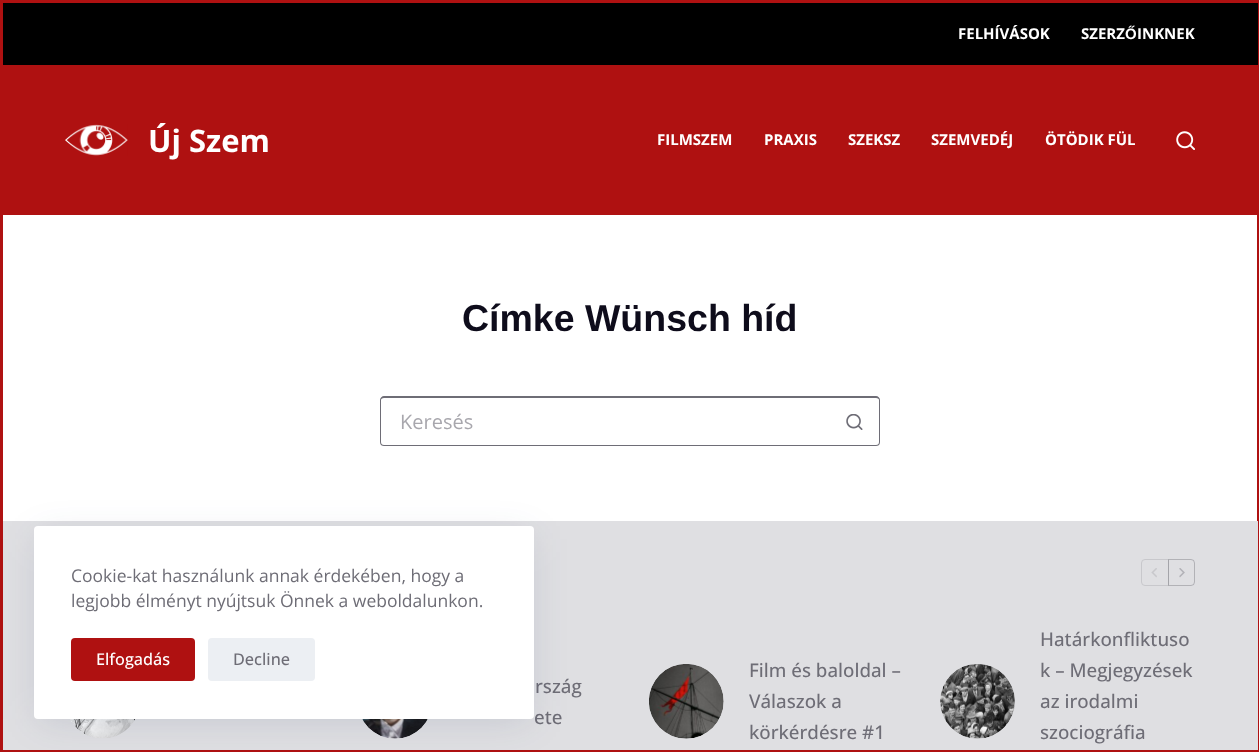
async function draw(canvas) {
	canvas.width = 1259;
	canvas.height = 752;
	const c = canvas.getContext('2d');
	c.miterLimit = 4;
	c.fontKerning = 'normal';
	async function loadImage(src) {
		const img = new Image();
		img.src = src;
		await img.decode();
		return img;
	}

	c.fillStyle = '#fff';
	c.fillRect(0, 0, 1259, 752);
	c.strokeStyle = '#af1111';
	c.lineWidth = 3;
	c.strokeRect(1.5, 1.5, 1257, 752);
	c.fillStyle = '#000';
	c.fillRect(3, 3, 1255, 62);
	c.font = 'bold 15px Open Sans';
	c.fillStyle = '#fff';
	c.fillText('FELHÍVÁSOK', 958, 39);
	c.fillText('SZERZ', 1081, 39);
	c.font = 'bold 15px Liberation Sans';
	c.fillText('Ő', 1125, 39);
	c.font = 'bold 15px Open Sans';
	c.fillText('INKNEK', 1137, 39);
	c.fillStyle = '#af1111';
	c.fillRect(3, 65, 1254, 150);
	c.drawImage(await loadImage('img1.png'), 65, 124, 63, 32);
	c.font = 'bold 31px Open Sans';
	c.fillStyle = '#fff';
	c.fillText('Új Szem', 148, 152);
	c.font = 'bold 15px Open Sans';
	for (const [text, x, y] of [
		['FILMSZEM', 657, 145],
		['PRAXIS', 764, 145],
		['SZEKSZ', 848, 145],
		['SZEMVEDÉJ', 931, 145],
		['ÖTÖDIK FÜL', 1045, 145],
	]) {
		c.fillText(text, x, y);
	}
	c.drawImage(await loadImage('img2.png'), 1176, 131, 19, 19);
	c.font = 'bold 37.5px Liberation Sans';
	c.fillStyle = '#0e0c1b';
	c.fillText('Címke Wünsch híd', 462, 331);
	c.fillStyle = '#6e6d76';
	c.beginPath();
	c.moveTo(384, 396);
	c.lineTo(830, 396);
	c.lineTo(830, 446);
	c.lineTo(384, 446);
	c.bezierCurveTo(382, 446, 380, 445, 380, 442);
	c.lineTo(380, 400);
	c.bezierCurveTo(380, 398, 382, 396, 384, 396);
	c.closePath();
	c.moveTo(384, 398);
	c.lineTo(830, 398);
	c.lineTo(830, 445);
	c.lineTo(384, 445);
	c.bezierCurveTo(382, 445, 381, 444, 381, 442);
	c.lineTo(381, 400);
	c.bezierCurveTo(381, 399, 382, 398, 384, 398);
	c.closePath();
	c.fill('evenodd');
	c.font = '20px Open Sans';
	c.fillStyle = '#a8a7ad';
	c.fillText('Keresés', 400, 429);
	c.fillStyle = '#6e6d76';
	c.beginPath();
	c.moveTo(830, 396);
	c.lineTo(876, 396);
	c.bezierCurveTo(878, 396, 880, 398, 880, 400);
	c.lineTo(880, 442);
	c.bezierCurveTo(880, 445, 878, 446, 876, 446);
	c.lineTo(830, 446);
	c.closePath();
	c.moveTo(830, 398);
	c.lineTo(876, 398);
	c.bezierCurveTo(878, 398, 879, 399, 879, 400);
	c.lineTo(879, 442);
	c.bezierCurveTo(879, 444, 878, 445, 876, 445);
	c.lineTo(830, 445);
	c.closePath();
	c.fill('evenodd');
	c.drawImage(await loadImage('img3.png'), 846, 414, 17, 16);
	c.fillStyle = '#dfdfe2';
	c.fillRect(3, 521, 1255, 229);
	c.beginPath();
	c.roundRect(1141.5, 559.5, 27, 26, [3.5, 0, 0, 3.5]);
	c.strokeStyle = '#c8c8cc';
	c.lineWidth = 1;
	c.stroke();
	c.drawImage(await loadImage('img4.png'), 1151, 568, 6, 10);
	c.beginPath();
	c.roundRect(1168.5, 559.5, 26, 26, [0, 3.5, 3.5, 0]);
	c.strokeStyle = '#6e6d7666';
	c.stroke();
	c.drawImage(await loadImage('img5.png'), 1179, 568, 6, 10);
	c.font = '500 18.75px Open Sans';
	c.fillStyle = '#6e6d76';
	c.fillText('rszág', 535, 693);
	c.fillText('ete', 534, 724);
	c.drawImage(await loadImage('img6.png'), 362, 719, 66, 20);
	c.drawImage(await loadImage('img7.png'), 649, 664, 75, 75);
	for (const [text, x, y] of [
		['Film és baloldal –', 749, 677],
		['Válaszok a', 749, 708],
		['körkérdésre #1', 749, 739],
	]) {
		c.fillText(text, x, y);
	}
	c.drawImage(await loadImage('img8.png'), 940, 664, 75, 75);
	for (const [text, x, y] of [
		['Határkonfliktuso', 1040, 646],
		['k – Megjegyzések', 1040, 677],
		['az irodalmi', 1040, 708],
		['szociográfia', 1040, 739],
	]) {
		c.fillText(text, x, y);
	}
	c.drawImage(await loadImage('img9.png'), 70, 719, 65, 19);
	c.fillStyle = '#af1111';
	c.fillRect(0, 750, 1259, 2);
	c.fillStyle = '#22386526';
	c.filter = 'blur(19px)';
	c.beginPath();
	c.rect(40, 539, 488, 180);
	c.fill();
	c.filter = 'none';
	c.fillStyle = '#fff';
	c.beginPath();
	c.roundRect(34, 526, 500, 193, 4);
	c.fill();
	c.font = '17.5px Open Sans';
	c.fillStyle = '#6e6d76';
	c.fillText('Cookie-kat használunk annak érdekében, hogy a', 71, 582);
	c.fillText('legjobb élményt nyújtsuk Önnek a weboldalunkon.', 71, 607);
	c.fillStyle = '#af1111';
	c.beginPath();
	c.roundRect(71, 638, 124, 43, 4);
	c.fill();
	c.font = '500 16.25px Open Sans';
	c.fillStyle = '#fff';
	c.fillText('Elfogadás', 96, 665);
	c.fillStyle = '#eceff3';
	c.beginPath();
	c.roundRect(208, 638, 107, 43, 4);
	c.fill();
	c.fillStyle = '#6e6d76';
	c.fillText('Decline', 233, 665);
}

draw(document.querySelector('canvas'));
